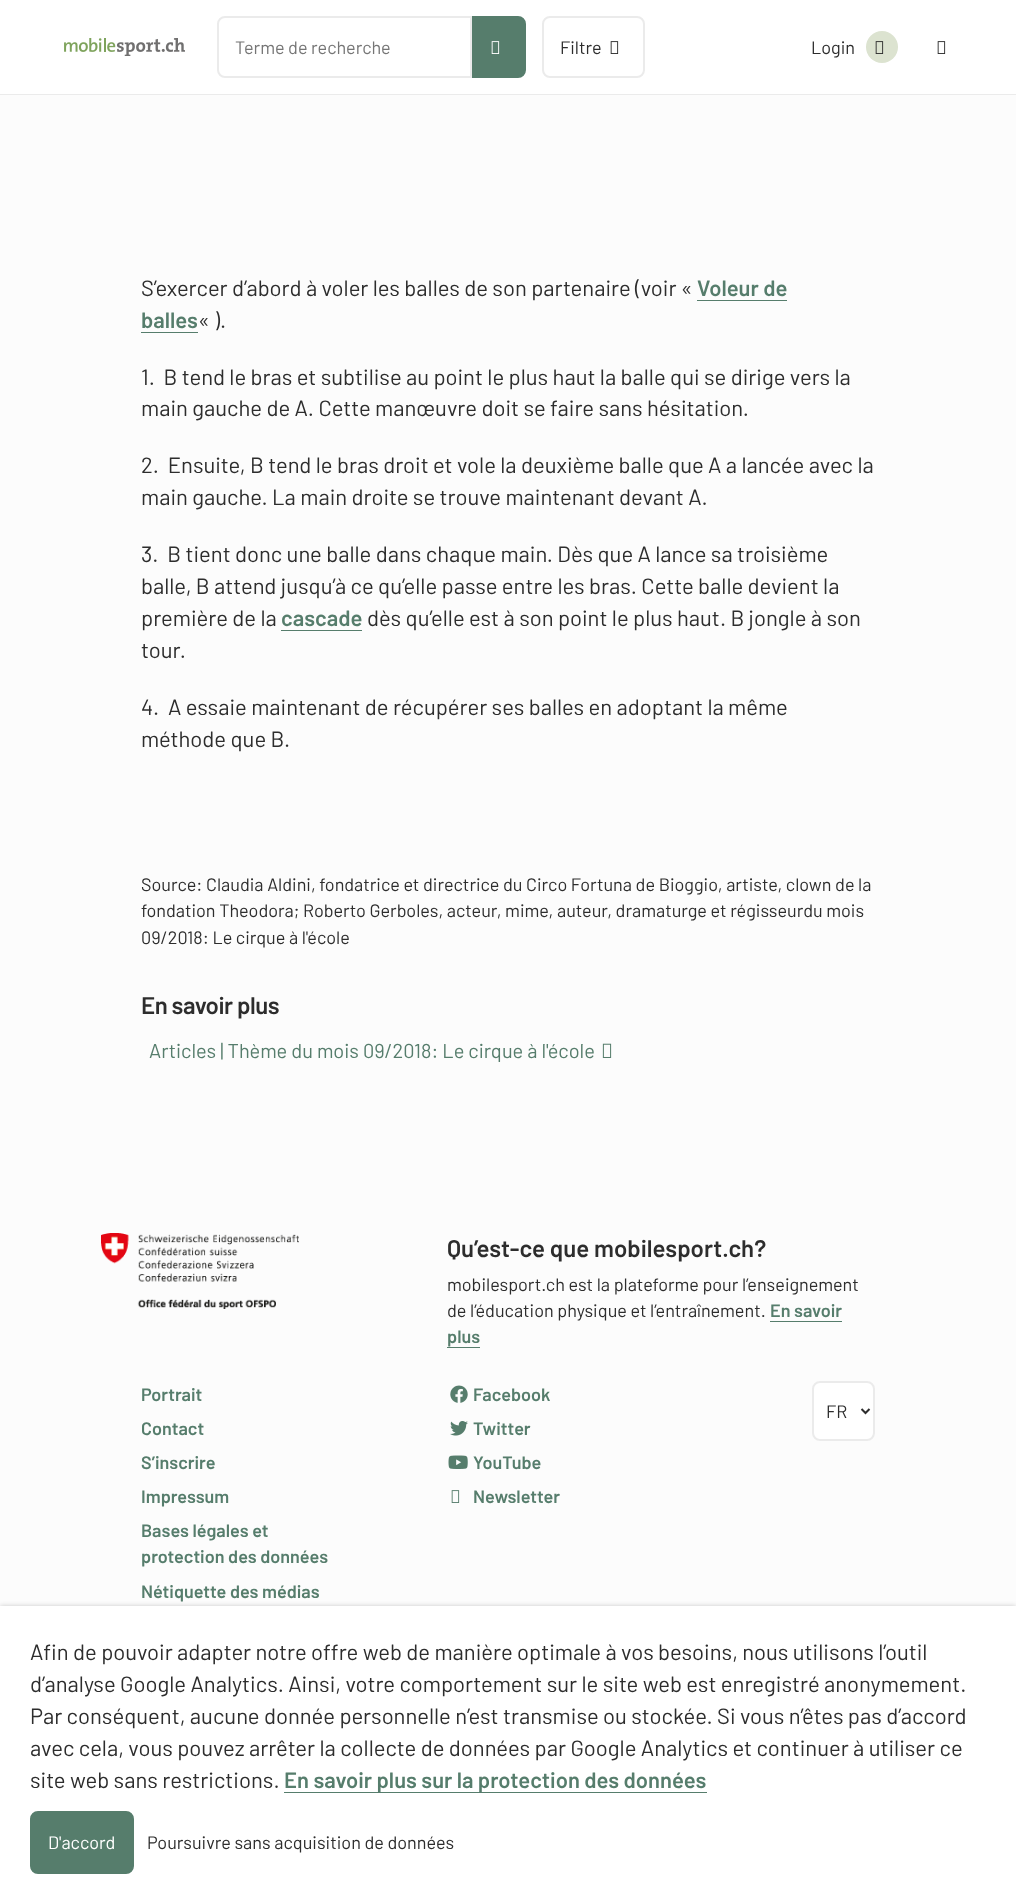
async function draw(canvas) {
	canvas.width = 1016;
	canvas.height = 1904;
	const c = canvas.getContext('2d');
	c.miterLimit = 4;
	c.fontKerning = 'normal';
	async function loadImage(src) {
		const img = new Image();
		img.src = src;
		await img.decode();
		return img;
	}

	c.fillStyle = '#fcfcfc';
	c.fillRect(0, 0, 1016, 1904);
	c.fillStyle = '#fff';
	c.fillRect(0, 0, 1016, 94);
	c.fillStyle = '#ebebeb';
	c.fillRect(0, 94, 1016, 1);
	c.drawImage(await loadImage('img1.png'), 64, 38, 121, 18);
	c.beginPath();
	c.roundRect(218, 17, 253, 60, [7, 0, 0, 7]);
	c.strokeStyle = '#ebebeb';
	c.lineWidth = 2;
	c.stroke();
	c.font = '18px Barlow';
	c.fillStyle = '#757575';
	c.fillText('Terme de recherche', 235, 54);
	c.fillStyle = '#567d6c';
	c.beginPath();
	c.roundRect(473, 17, 52, 60, [0, 7, 7, 0]);
	c.fill();
	c.strokeStyle = '#567d6c';
	c.stroke();
	c.drawImage(await loadImage('img2.png'), 491, 41, 9, 13);
	c.beginPath();
	c.roundRect(543, 17, 101, 60, 7);
	c.strokeStyle = '#ebebeb';
	c.stroke();
	c.fillStyle = '#2d2d2d';
	c.fillText('Filtre', 560, 54);
	c.drawImage(await loadImage('img3.png'), 610, 41, 9, 13);
	c.fillText('Login', 811, 54);
	c.fillStyle = '#dce3d0';
	c.beginPath();
	c.arc(882, 47, 16, 0, 2 * Math.PI);
	c.fill();
	c.drawImage(await loadImage('img4.png'), 875, 41, 9, 13);
	c.drawImage(await loadImage('img3.png'), 937, 41, 9, 13);
	c.font = '22px Barlow';
	c.fillStyle = '#2d2d2d';
	c.fillText('S’exercer d’abord à voler les balles de son partenaire (voir «', 141, 296);
	c.font = '600 22px Barlow';
	c.fillStyle = '#567d6c';
	c.fillText('Voleur de', 697, 296);
	c.fillRect(697, 300, 90, 1);
	c.fillText('balles', 141, 328);
	c.fillRect(141, 332, 57, 1);
	c.font = '22px Barlow';
	c.fillStyle = '#2d2d2d';
	for (const [text, x, y] of [
		['« ).', 198, 328],
		['1.  B tend le bras et subtilise au point le plus haut la balle qui se dirige vers la', 141, 385],
		['main gauche de A. Cette manœuvre doit se faire sans hésitation.', 141, 416],
		['2.  Ensuite, B tend le bras droit et vole la deuxième balle que A a lancée avec la', 141, 473],
		['main gauche. La main droite se trouve maintenant devant A.', 141, 505],
		['3.  B tient donc une balle dans chaque main. Dès que A lance sa troisième', 141, 562],
		['balle, B attend jusqu’à ce qu’elle passe entre les bras. Cette balle devient la', 141, 594],
		['première de la', 141, 626],
	]) {
		c.fillText(text, x, y);
	}
	c.font = '600 22px Barlow';
	c.fillStyle = '#567d6c';
	c.fillText('cascade', 281, 626);
	c.fillRect(281, 630, 81, 1);
	c.font = '22px Barlow';
	c.fillStyle = '#2d2d2d';
	for (const [text, x, y] of [
		['dès qu’elle est à son point le plus haut. B jongle à son', 367, 626],
		['tour.', 141, 658],
		['4.  A essaie maintenant de récupérer ses balles en adoptant la même', 141, 715],
		['méthode que B.', 141, 747],
	]) {
		c.fillText(text, x, y);
	}
	c.font = '18px Barlow';
	for (const [text, x, y] of [
		['Source: Claudia Aldini, fondatrice et directrice du Circo Fortuna de Bioggio, artiste, clown de la', 141, 891],
		['fondation Theodora; Roberto Gerboles, acteur, mime, auteur, dramaturge et régisseurdu mois', 141, 917],
		['09/2018: Le cirque à l\'école', 141, 944],
	]) {
		c.fillText(text, x, y);
	}
	c.letterSpacing = '-0.5px';
	c.font = '600 24px Barlow';
	c.fillText('En savoir plus', 141, 1014);
	c.letterSpacing = '0px';
	c.font = '20px Barlow';
	c.fillStyle = '#567d6c';
	c.fillText('Articles | Thème du mois 09/2018: Le cirque à l\'école', 149, 1058);
	c.drawImage(await loadImage('img5.png'), 602, 1043, 10, 15);
	c.drawImage(await loadImage('img6.png'), 101, 1233, 198, 76);
	c.font = '600 24px Barlow';
	c.fillStyle = '#2d2d2d';
	c.fillText('Qu’est-ce que mobilesport.ch?', 447, 1257);
	c.font = '18px Barlow';
	c.fillText('mobilesport.ch est la plateforme pour l’enseignement', 447, 1291);
	c.fillText('de l’éducation physique et l’entraînement.', 447, 1317);
	c.font = '600 18px Barlow';
	c.fillStyle = '#567d6c';
	c.fillText('En savoir', 770, 1317);
	c.fillRect(770, 1321, 72, 1);
	c.fillText('plus', 447, 1343);
	c.fillRect(447, 1347, 33, 1);
	for (const [text, x, y] of [
		['Portrait', 141, 1401],
		['Contact', 141, 1435],
		['S’inscrire', 141, 1469],
		['Impressum', 141, 1503],
		['Bases légales et', 141, 1537],
		['protection des données', 141, 1563],
		['Nétiquette des médias', 141, 1598],
	]) {
		c.fillText(text, x, y);
	}
	c.drawImage(await loadImage('img7.png'), 450, 1385, 18, 18);
	c.fillText('Facebook', 473, 1401);
	c.drawImage(await loadImage('img8.png'), 450, 1421, 18, 15);
	c.fillText('Twitter', 473, 1435);
	c.drawImage(await loadImage('img9.png'), 448, 1455, 20, 14);
	c.fillText('YouTube', 473, 1469);
	c.drawImage(await loadImage('img10.png'), 451, 1490, 9, 13);
	c.fillText('Newsletter', 473, 1503);
	c.fillStyle = '#fff';
	c.beginPath();
	c.roundRect(813, 1382, 61, 58, 7);
	c.fill();
	c.stroke();
	c.beginPath();
	c.moveTo(861.5, 1409);
	c.lineTo(865.5, 1413);
	c.lineTo(869.5, 1409);
	c.strokeStyle = '#2d2d2d';
	c.stroke();
	c.font = '18px Barlow';
	c.fillStyle = '#2d2d2d';
	c.fillText('FR', 826, 1418);
	c.fillStyle = '#00000033';
	c.filter = 'blur(2.5px)';
	c.beginPath();
	c.rect(0, 1606, 1016, 298);
	c.fill();
	c.filter = 'none';
	c.fillStyle = '#fff';
	c.fillRect(0, 1606, 1016, 298);
	c.font = '22px Barlow';
	c.fillStyle = '#2d2d2d';
	for (const [text, x, y] of [
		['Afin de pouvoir adapter notre offre web de manière optimale à vos besoins, nous utilisons l’outil', 30, 1660],
		['d’analyse Google Analytics. Ainsi, votre comportement sur le site web est enregistré anonymement.', 30, 1692],
		['Par conséquent, aucune donnée personnelle n’est transmise ou stockée. Si vous n’êtes pas d’accord', 30, 1724],
		['avec cela, vous pouvez arrêter la collecte de données par Google Analytics et continuer à utiliser ce', 30, 1756],
		['site web sans restrictions.', 30, 1788],
	]) {
		c.fillText(text, x, y);
	}
	c.fillStyle = '#567d6c';
	c.fillRect(284, 1792, 423, 1);
	c.font = '600 22px Barlow';
	c.fillText('En savoir plus sur la protection des données', 284, 1788);
	c.beginPath();
	c.roundRect(31, 1812, 102, 61, 7);
	c.fill();
	c.strokeStyle = '#567d6c';
	c.stroke();
	c.font = '18px Barlow';
	c.fillStyle = '#fff';
	c.fillText('D\'accord', 48, 1849);
	c.fillStyle = '#2d2d2d';
	c.fillText('Poursuivre sans acquisition de données', 147, 1849);
}

draw(document.querySelector('canvas'));
